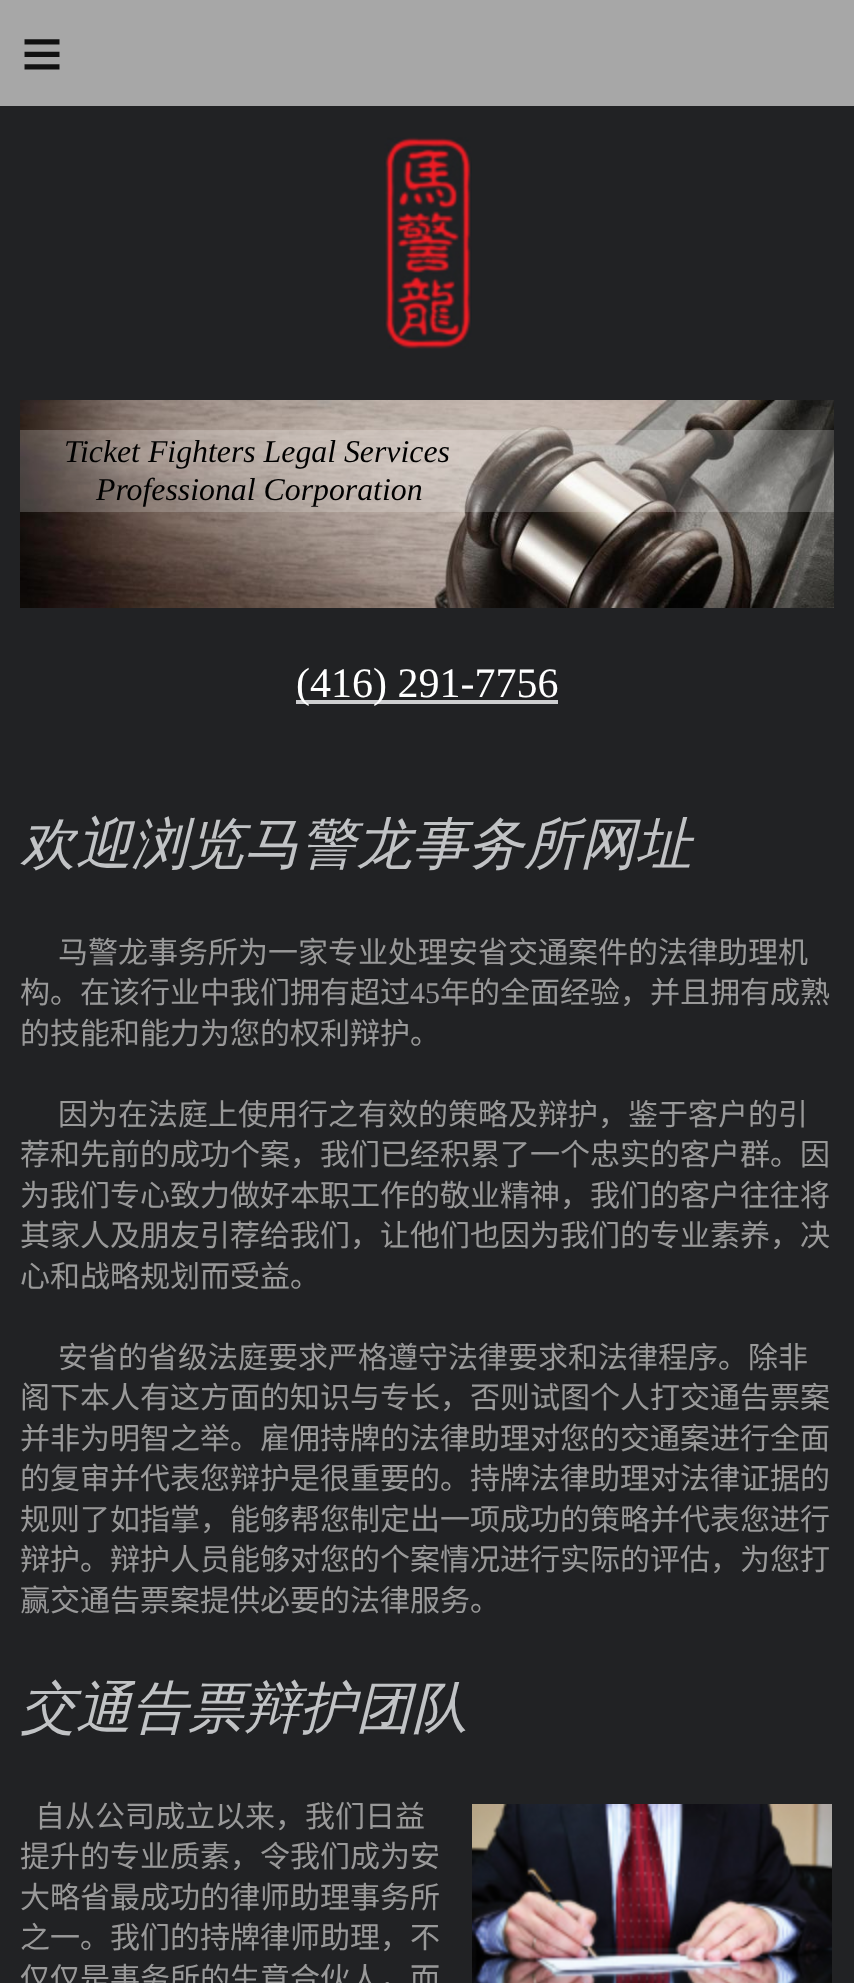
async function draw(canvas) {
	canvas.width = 854;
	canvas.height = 1983;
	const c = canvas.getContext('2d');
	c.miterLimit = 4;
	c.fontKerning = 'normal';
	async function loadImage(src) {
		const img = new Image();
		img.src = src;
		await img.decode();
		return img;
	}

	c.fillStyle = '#212224';
	c.fillRect(0, 0, 854, 1983);
	c.fillStyle = '#a7a7a7';
	c.fillRect(0, 0, 854, 106);
	c.letterSpacing = '21px';
	c.font = '72px Liberation Sans';
	c.fillStyle = '#111';
	c.fillText('≡', 21, 78);
	c.drawImage(await loadImage('img1.png'), 384, 137, 88, 212);
	c.drawImage(await loadImage('img2.png'), 20, 400, 814, 208);
	c.fillStyle = '#ffffff33';
	c.fillRect(20, 430, 814, 82);
	c.letterSpacing = '0px';
	c.font = 'italic 31.8px Liberation Serif';
	c.fillStyle = '#000';
	c.fillText('Ticket Fighters Legal Services', 64, 462);
	c.fillText('Professional Corporation', 96, 500);
	c.fillStyle = '#cdced0';
	c.fillRect(296, 700, 262, 4);
	c.font = '42px Liberation Serif';
	c.fillStyle = '#fff';
	c.fillText('(416) 291-7756', 296, 697);
	c.font = 'italic 500 56px WenQuanYi Zen Hei';
	c.fillStyle = '#c1c3c5';
	c.fillText('欢迎浏览马警龙事务所网址', 20, 863);
	c.font = '30px Noto Sans CJK SC';
	c.fillStyle = '#999';
	c.fillText('马警龙事务所为一家专业处理安省交通案件的法律助理机', 58, 963);
	c.fillText('构。在该行业中我们拥有超过', 20, 1003);
	c.font = '30px Liberation Serif';
	c.fillText('45', 410, 1003);
	c.font = '30px Noto Sans CJK SC';
	for (const [text, x, y] of [
		['年的全面经验，并且拥有成熟', 440, 1003],
		['的技能和能力为您的权利辩护。', 20, 1044],
		['因为在法庭上使用行之有效的策略及辩护，鉴于客户的引', 58, 1125],
		['荐和先前的成功个案，我们已经积累了一个忠实的客户群。因', 20, 1165],
		['为我们专心致力做好本职工作的敬业精神，我们的客户往往将', 20, 1206],
		['其家人及朋友引荐给我们，让他们也因为我们的专业素养，决', 20, 1246],
		['心和战略规划而受益。', 20, 1287],
		['安省的省级法庭要求严格遵守法律要求和法律程序。除非', 58, 1368],
		['阁下本人有这方面的知识与专长，否则试图个人打交通告票案', 20, 1408],
		['并非为明智之举。雇佣持牌的法律助理对您的交通案进行全面', 20, 1449],
		['的复审并代表您辩护是很重要的。持牌法律助理对法律证据的', 20, 1489],
		['规则了如指掌，能够帮您制定出一项成功的策略并代表您进行', 20, 1530],
		['辩护。辩护人员能够对您的个案情况进行实际的评估，为您打', 20, 1570],
		['赢交通告票案提供必要的法律服务。', 20, 1611],
	]) {
		c.fillText(text, x, y);
	}
	c.font = 'italic 500 56px WenQuanYi Zen Hei';
	c.fillStyle = '#c1c3c5';
	c.fillText('交通告票辩护团队', 20, 1727);
	c.font = '30px Noto Sans CJK SC';
	c.fillStyle = '#999';
	for (const [text, x, y] of [
		['自从公司成立以来，我们日益', 35, 1827],
		['提升的专业质素，令我们成为安', 20, 1867],
		['大略省最成功的律师助理事务所', 20, 1908],
		['之一。我们的持牌律师助理，不', 20, 1948],
		['仅仅是事务所的生意合伙人，而', 20, 1989],
	]) {
		c.fillText(text, x, y);
	}
	c.drawImage(await loadImage('img3.png'), 472, 1804, 360, 179);
}

draw(document.querySelector('canvas'));
